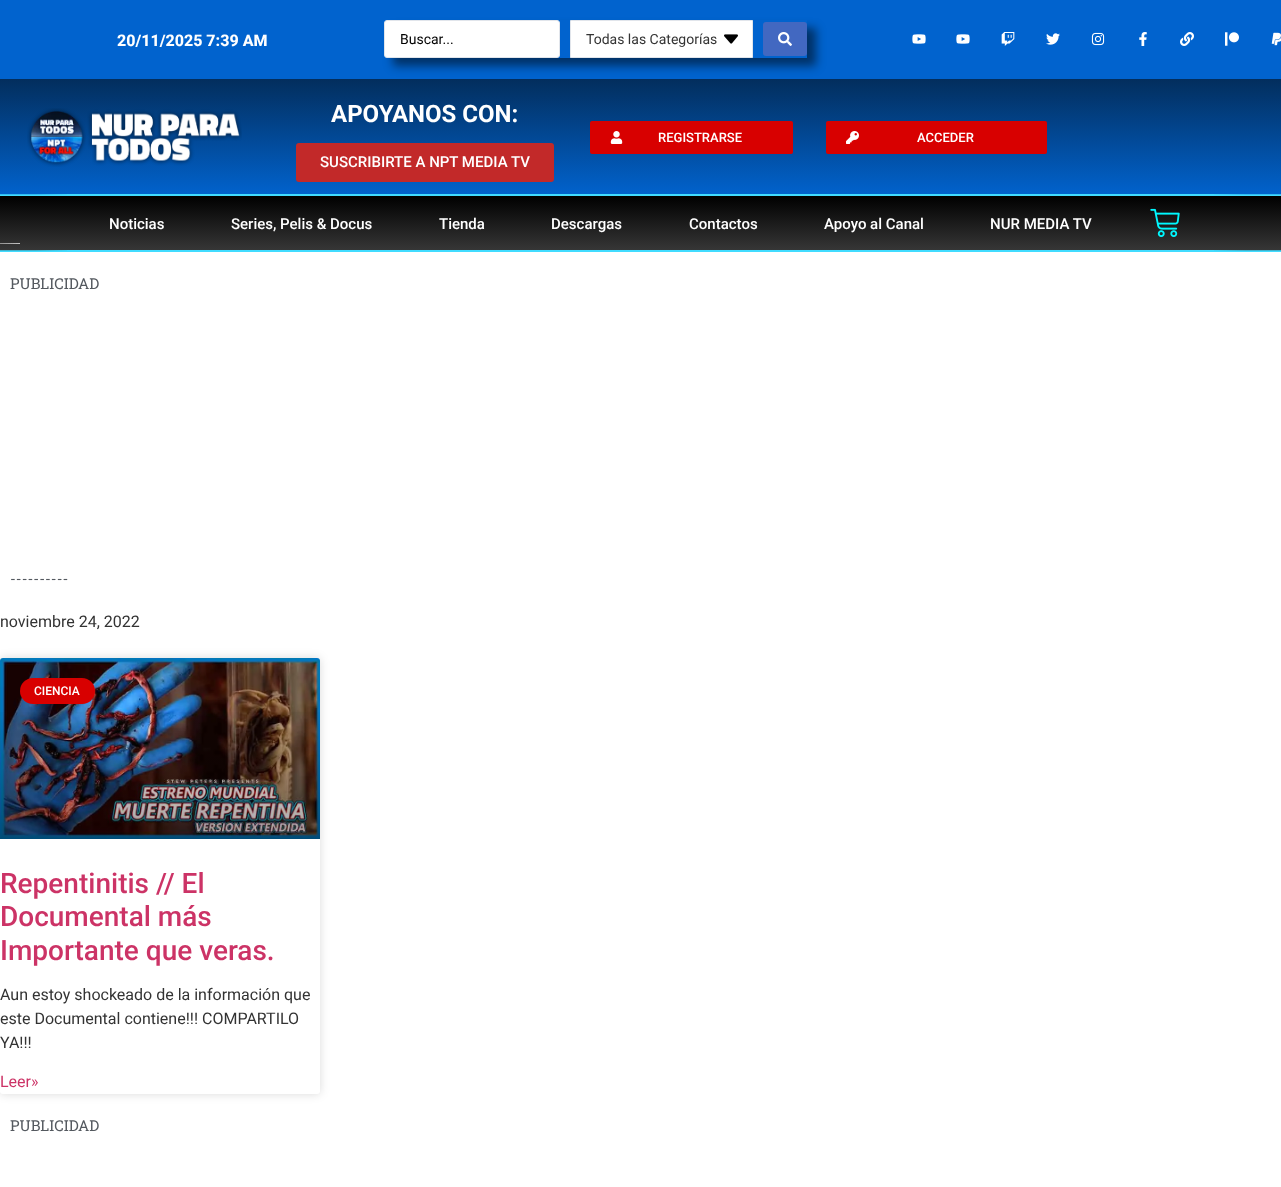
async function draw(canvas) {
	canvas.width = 1281;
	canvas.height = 1187;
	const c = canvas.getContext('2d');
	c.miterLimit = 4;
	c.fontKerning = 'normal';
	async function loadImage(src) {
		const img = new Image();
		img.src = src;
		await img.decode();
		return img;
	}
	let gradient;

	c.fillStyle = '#fff';
	c.fillRect(0, 0, 1281, 1187);
	c.fillStyle = '#0163ce';
	c.fillRect(0, 0, 1281, 79);
	c.font = '800 16px Roboto';
	c.fillStyle = '#fff';
	c.fillText('20/11/2025 7:39 AM', 117, 46);
	c.save();
	c.beginPath();
	c.moveTo(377, 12);
	c.lineTo(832, 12);
	c.lineTo(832, 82);
	c.lineTo(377, 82);
	c.closePath();
	c.moveTo(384, 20);
	c.lineTo(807, 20);
	c.lineTo(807, 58);
	c.lineTo(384, 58);
	c.closePath();
	c.clip('evenodd');
	c.fillStyle = '#00000080';
	c.filter = 'blur(5px)';
	c.beginPath();
	c.rect(393, 28, 423, 38);
	c.fill();
	c.filter = 'none';
	c.restore();
	c.beginPath();
	c.roundRect(384.5, 20.5, 175, 37, 2.5);
	c.fill();
	c.strokeStyle = '#e1e5eb';
	c.stroke();
	c.font = '14px Roboto';
	c.fillStyle = '#000';
	c.fillText('Buscar...', 400, 44);
	c.fillStyle = '#fff';
	c.beginPath();
	c.rect(570.5, 20.5, 182, 37);
	c.fill();
	c.stroke();
	c.fillStyle = '#333';
	c.fillText('Todas las Categorías', 586, 44);
	c.drawImage(await loadImage('img1.png'), 724, 34, 14, 10);
	c.fillStyle = '#4268c1';
	c.beginPath();
	c.roundRect(763, 22, 44, 34, 3);
	c.fill();
	c.drawImage(await loadImage('img2.png'), 778, 32, 14, 14);
	c.drawImage(await loadImage('img3.png'), 912, 34, 14, 10);
	c.drawImage(await loadImage('img3.png'), 956, 34, 14, 10);
	c.drawImage(await loadImage('img4.png'), 1001, 32, 14, 14);
	c.drawImage(await loadImage('img5.png'), 1046, 33, 14, 12);
	c.drawImage(await loadImage('img6.png'), 1091, 32, 14, 14);
	c.drawImage(await loadImage('img7.png'), 1139, 32, 8, 14);
	c.drawImage(await loadImage('img8.png'), 1180, 32, 14, 14);
	c.drawImage(await loadImage('img9.png'), 1225, 32, 14, 14);
	c.drawImage(await loadImage('img10.png'), 1271, 32, 10, 14);
	gradient = c.createLinearGradient(641, 79, 641, 196);
	gradient.addColorStop(0, '#032e5d');
	gradient.addColorStop(1, '#0163ce');
	c.fillStyle = gradient;
	c.fillRect(0, 79, 1281, 116);
	c.drawImage(await loadImage('img11.png'), 27, 108, 215, 59);
	c.font = 'bold 24px Roboto';
	c.fillStyle = '#fff';
	c.fillText('APOYANOS CON:', 331, 122);
	c.fillStyle = '#c22929';
	c.beginPath();
	c.roundRect(296, 143, 258, 39, 3);
	c.fill();
	c.font = '500 15px Roboto';
	c.fillStyle = '#fff';
	c.fillText('SUSCRIBIRTE A NPT MEDIA TV', 320, 167);
	c.fillStyle = '#d80000';
	c.beginPath();
	c.roundRect(590, 121, 203, 33, 2);
	c.fill();
	c.drawImage(await loadImage('img12.png'), 610, 131, 13, 13);
	c.font = '500 13px Roboto';
	c.fillStyle = '#fff';
	c.fillText('REGISTRARSE', 658, 142);
	c.fillStyle = '#d80000';
	c.beginPath();
	c.roundRect(826, 121, 221, 33, 2);
	c.fill();
	c.drawImage(await loadImage('img13.png'), 846, 131, 13, 13);
	c.fillStyle = '#fff';
	c.fillText('ACCEDER', 917, 142);
	c.fillStyle = '#41dcff';
	c.beginPath();
	c.moveTo(-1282, 196);
	c.lineTo(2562, 196);
	c.bezierCurveTo(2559, 196, 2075, 194, 640, 194);
	c.bezierCurveTo(-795, 194, -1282, 196, -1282, 196);
	c.closePath();
	c.fill();
	gradient = c.createLinearGradient(641, 252, 641, 196);
	gradient.addColorStop(0, '#383838');
	gradient.addColorStop(1, '#000');
	c.fillStyle = gradient;
	c.fillRect(0, 196, 1281, 55);
	c.font = '500 15px Roboto';
	c.fillStyle = '#fff';
	for (const [text, x, y] of [
		['Noticias', 109, 229],
		['Series, Pelis & Docus', 231, 229],
		['Tienda', 439, 229],
		['Descargas', 551, 229],
		['Contactos', 689, 229],
		['Apoyo al Canal', 824, 229],
		['NUR MEDIA TV', 990, 229],
	]) {
		c.fillText(text, x, y);
	}
	c.drawImage(await loadImage('img14.png'), 1150, 208, 30, 30);
	c.fillStyle = '#41dcff';
	c.beginPath();
	c.moveTo(-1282, 252);
	c.lineTo(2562, 252);
	c.bezierCurveTo(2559, 252, 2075, 250, 640, 250);
	c.bezierCurveTo(-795, 250, -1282, 252, -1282, 252);
	c.closePath();
	c.fill();
	c.drawImage(await loadImage('img15.png'), 0, 243, 20, 1);
	c.font = '15px Roboto Slab';
	c.fillStyle = '#54595f';
	c.fillText('PUBLICIDAD', 10, 289);
	c.fillText('----------', 10, 584);
	c.font = '16px Roboto';
	c.fillStyle = '#333';
	c.fillText('noviembre 24, 2022', 0, 627);
	c.fillStyle = '#00000026';
	c.filter = 'blur(5px)';
	c.beginPath();
	c.roundRect(0, 658, 320, 436, 3);
	c.fill();
	c.filter = 'none';
	c.fillStyle = '#fff';
	c.beginPath();
	c.roundRect(0, 658, 320, 436, 3);
	c.fill();
	c.drawImage(await loadImage('img16.png'), 0, 658, 320, 181);
	gradient = c.createLinearGradient(160, 839, 160, 658);
	gradient.addColorStop(0, '#00000059');
	gradient.addColorStop(0.75, '#00000000');
	c.fillStyle = gradient;
	c.fillRect(0, 712, 320, 127);
	c.fillStyle = '#d80000';
	c.beginPath();
	c.roundRect(20, 678, 75, 26, 13);
	c.fill();
	c.font = '500 12px Roboto';
	c.fillStyle = '#fff';
	c.fillText('CIENCIA', 34, 695);
	c.font = '500 28px Roboto';
	c.fillStyle = '#c36';
	for (const [text, x, y] of [
		['Repentinitis // El', 0, 893],
		['Documental más', 0, 926],
		['Importante que veras.', 0, 960],
	]) {
		c.fillText(text, x, y);
	}
	c.font = '16px Roboto';
	c.fillStyle = '#333';
	for (const [text, x, y] of [
		['Aun estoy shockeado de la información que', 0, 1000],
		['este Documental contiene!!! COMPARTILO', 0, 1024],
		['YA!!!', 0, 1048],
	]) {
		c.fillText(text, x, y);
	}
	c.fillStyle = '#c36';
	c.fillText('Leer»', 0, 1087);
	c.font = '15px Roboto Slab';
	c.fillStyle = '#54595f';
	c.fillText('PUBLICIDAD', 10, 1131);
}

draw(document.querySelector('canvas'));
